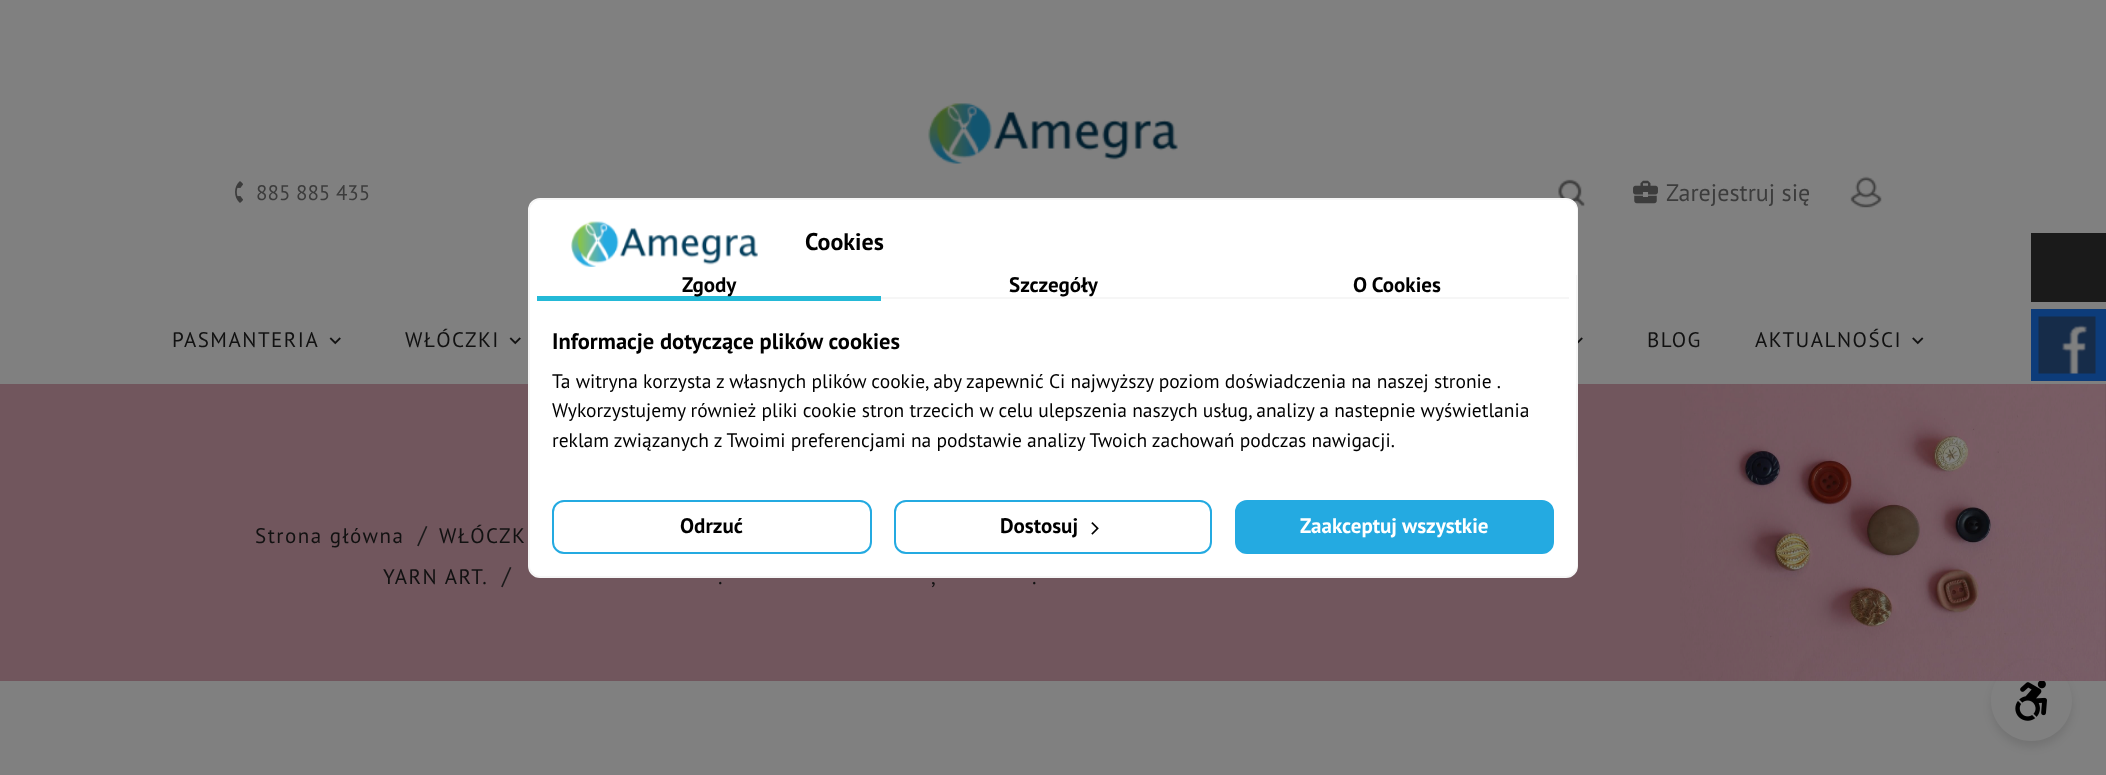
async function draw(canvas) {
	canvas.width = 2106;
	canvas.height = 775;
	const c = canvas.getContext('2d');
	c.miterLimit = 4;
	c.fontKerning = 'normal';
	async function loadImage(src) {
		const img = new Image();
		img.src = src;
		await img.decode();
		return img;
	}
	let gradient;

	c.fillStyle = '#808080';
	c.fillRect(0, 0, 2106, 775);
	c.drawImage(await loadImage('img1.png'), 928, 103, 250, 61);
	c.drawImage(await loadImage('img2.png'), 235, 181, 8, 22);
	c.font = '21px PT Sans';
	c.fillStyle = '#3c3c3c';
	c.fillText('885 885 435', 256, 200);
	c.drawImage(await loadImage('img3.png'), 1558, 179, 27, 28);
	c.drawImage(await loadImage('img4.png'), 1633, 180, 25, 24);
	c.font = '24px PT Sans';
	c.fillText('Zarejestruj się', 1666, 201);
	c.drawImage(await loadImage('img5.png'), 1850, 176, 32, 32);
	c.letterSpacing = '1.5px';
	c.font = '21px PT Sans';
	c.fillStyle = '#111';
	c.fillText('PASMANTERIA', 172, 347);
	c.drawImage(await loadImage('img6.png'), 329, 337, 12, 8);
	c.fillText('WŁÓCZKI', 405, 347);
	c.drawImage(await loadImage('img6.png'), 509, 337, 12, 8);
	c.drawImage(await loadImage('img7.png'), 1578, 337, 5, 7);
	c.fillText('BLOG', 1647, 347);
	c.fillText('AKTUALNOŚCI', 1755, 347);
	c.drawImage(await loadImage('img8.png'), 1912, 337, 12, 8);
	c.drawImage(await loadImage('img12.png'), 0, 384, 2106, 297);
	c.fillStyle = '#fff';
	c.beginPath();
	c.roundRect(529, 199, 1048, 378, 11);
	c.fill();
	c.strokeStyle = '#f6f6f6';
	c.lineWidth = 2;
	c.stroke();
	c.beginPath();
	c.roundRect(530, 200, 1047, 75, [11, 11, 0, 0]);
	c.fill();
	c.drawImage(await loadImage('img9.png'), 571, 221, 187, 46);
	c.letterSpacing = '0px';
	c.font = 'bold 24px PT Sans';
	c.fillStyle = '#000';
	c.fillText('Cookies', 805, 250);
	c.fillStyle = '#f6f6f6';
	c.fillRect(881, 297, 688, 2);
	c.fillStyle = '#24b9d7';
	c.fillRect(537, 296, 344, 5);
	c.font = 'bold 21px PT Sans';
	c.fillStyle = '#000';
	for (const [text, x, y] of [
		['Zgody', 682, 292],
		['Szczegóły', 1009, 292],
		['O Cookies', 1353, 292],
	]) {
		c.fillText(text, x, y);
	}
	c.font = 'bold 22.5px PT Sans';
	c.fillText('Informacje dotyczące plików cookies', 552, 349);
	c.font = '19.5px PT Sans';
	for (const [text, x, y] of [
		['Ta witryna korzysta z własnych plików cookie, aby zapewnić Ci najwyższy poziom doświadczenia na naszej stronie .', 552, 388],
		['Wykorzystujemy również pliki cookie stron trzecich w celu ulepszenia naszych usług, analizy a nastepnie wyświetlania', 552, 417],
		['reklam związanych z Twoimi preferencjami na podstawie analizy Twoich zachowań podczas nawigacji.', 552, 447],
	]) {
		c.fillText(text, x, y);
	}
	gradient = c.createLinearGradient(1053, 576, 1053, 455);
	gradient.addColorStop(0.81, '#fff');
	gradient.addColorStop(1, '#ffffff00');
	c.fillStyle = gradient;
	c.beginPath();
	c.roundRect(530, 455, 1047, 121, [0, 0, 11, 11]);
	c.fill();
	c.beginPath();
	c.roundRect(553, 501, 318, 52, 11);
	c.strokeStyle = '#24aae1';
	c.stroke();
	c.font = 'bold 21px PT Sans';
	c.fillStyle = '#000';
	c.fillText('Odrzuć', 680, 533);
	c.beginPath();
	c.roundRect(895, 501, 316, 52, 11);
	c.stroke();
	c.fillText('Dostosuj', 1000, 533);
	c.drawImage(await loadImage('img10.png'), 1091, 522, 8, 13);
	c.fillStyle = '#24aae1';
	c.beginPath();
	c.roundRect(1236, 501, 317, 52, 11);
	c.fill();
	c.stroke();
	c.fillStyle = '#fff';
	c.fillText('Zaakceptuj wszystkie', 1300, 533);
	c.fillStyle = '#1a1a1a';
	c.fillRect(2031, 233, 75, 69);
	c.fillStyle = '#0d3c7a';
	c.fillRect(2031, 309, 75, 72);
	c.drawImage(await loadImage('img11.png'), 2038, 316, 58, 58);
	c.letterSpacing = '1.5px';
	c.font = '21px PT Sans';
	c.fillStyle = '#111';
	c.fillText('Strona główna', 255, 543);
	c.letterSpacing = '0px';
	c.font = '24px PT Sans';
	c.fillStyle = '#1a1a1a';
	c.fillText('/', 418, 543);
	c.letterSpacing = '1.5px';
	c.font = '21px PT Sans';
	c.fillStyle = '#111';
	c.fillText('WŁÓCZK', 439, 543);
	c.fillText('YARN ART.', 383, 584);
	c.letterSpacing = '0px';
	c.font = '24px PT Sans';
	c.fillStyle = '#1a1a1a';
	c.fillText('/', 502, 584);
	c.letterSpacing = '1.5px';
	c.font = '21px PT Sans';
	c.fillStyle = '#111';
	for (const [text, x, y] of [
		['.', 718, 584],
		[',', 931, 584],
		['.', 1032, 584],
	]) {
		c.fillText(text, x, y);
	}
	c.save();
	c.beginPath();
	c.moveTo(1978, 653);
	c.lineTo(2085, 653);
	c.lineTo(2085, 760);
	c.lineTo(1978, 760);
	c.closePath();
	c.moveTo(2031.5, 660);
	c.bezierCurveTo(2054, 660, 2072, 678, 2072, 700.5);
	c.bezierCurveTo(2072, 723, 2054, 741, 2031.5, 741);
	c.bezierCurveTo(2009, 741, 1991, 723, 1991, 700.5);
	c.bezierCurveTo(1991, 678, 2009, 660, 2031.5, 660);
	c.closePath();
	c.clip('evenodd');
	c.fillStyle = '#0000001a';
	c.filter = 'blur(4px)';
	c.beginPath();
	c.roundRect(1991, 666, 81, 81, 40.5);
	c.fill();
	c.filter = 'none';
	c.restore();
	c.drawImage(await loadImage('img13.png'), 2015, 681, 32, 40);
}

draw(document.querySelector('canvas'));
